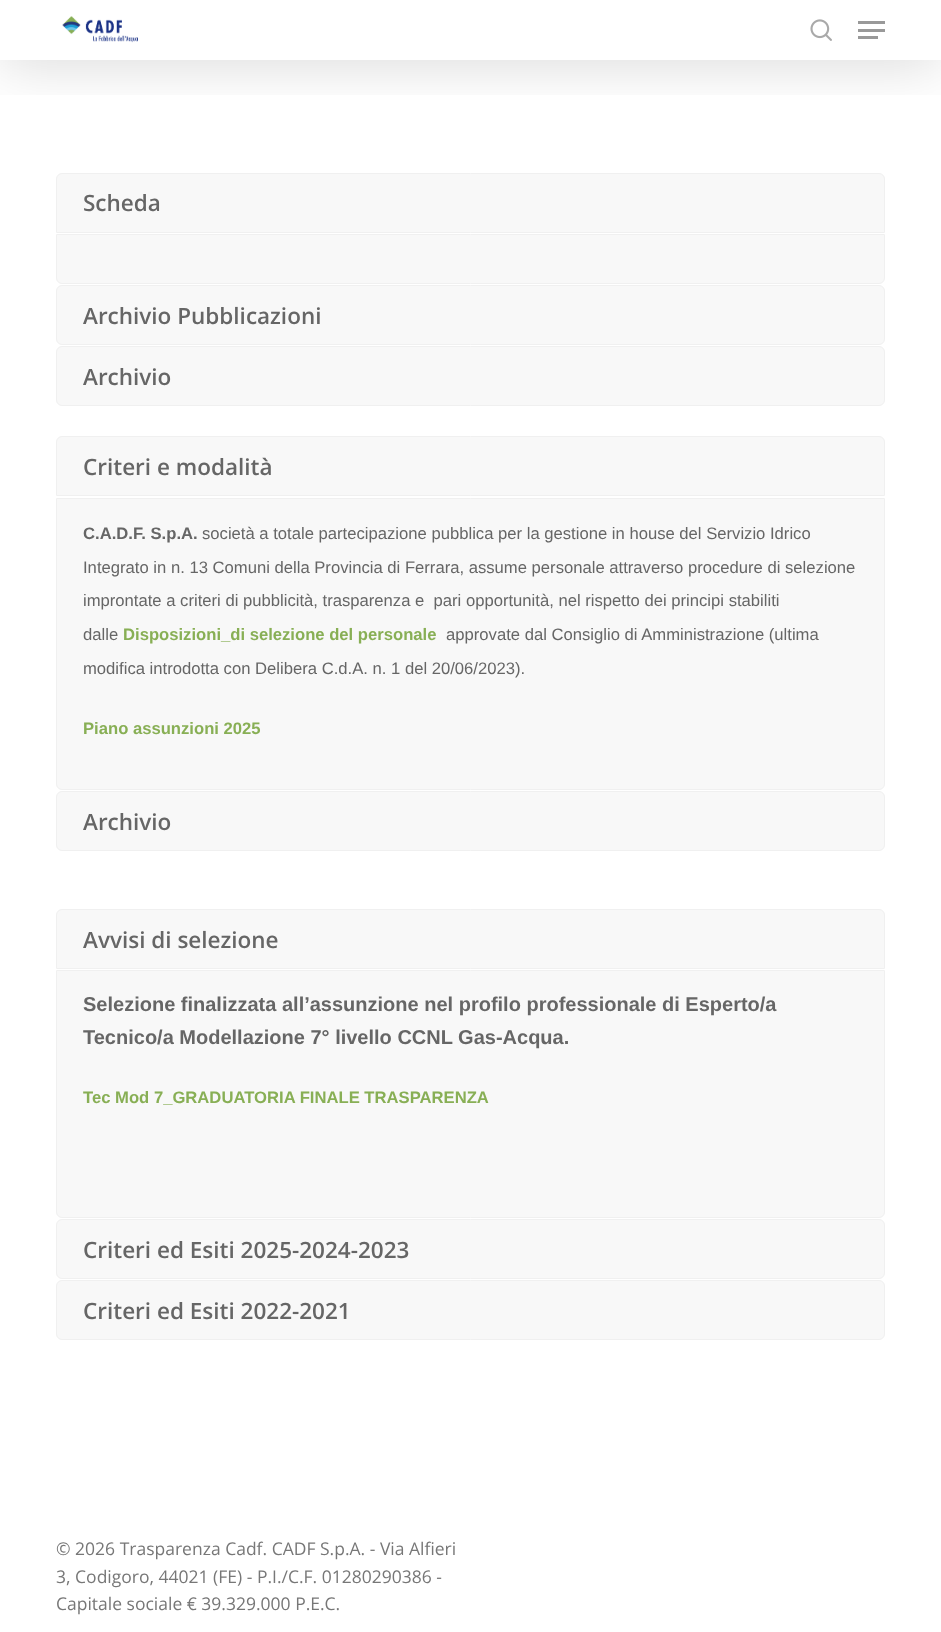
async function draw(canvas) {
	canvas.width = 941;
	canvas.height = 1632;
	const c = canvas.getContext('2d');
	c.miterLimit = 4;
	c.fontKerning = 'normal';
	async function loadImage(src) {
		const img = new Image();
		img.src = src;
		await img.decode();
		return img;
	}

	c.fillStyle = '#fff';
	c.fillRect(0, 0, 941, 1632);
	c.save();
	c.beginPath();
	c.rect(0, 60, 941, 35);
	c.clip();
	c.fillStyle = '#00000026';
	c.filter = 'blur(28px)';
	c.beginPath();
	c.rect(0, 4, 941, 60);
	c.fill();
	c.filter = 'none';
	c.restore();
	c.drawImage(await loadImage('img1.png'), 62, 16, 76, 27);
	c.drawImage(await loadImage('img2.png'), 810, 19, 22, 22);
	for (const [x, y, w, h, color] of [
		[858, 21, 27, 3, '#999'],
		[858, 36, 20, 3, '#999'],
		[858, 29, 27, 3, '#999'],
	]) {
		c.fillStyle = color;
		c.fillRect(x, y, w, h);
	}
	c.fillStyle = '#f8f8f8';
	c.beginPath();
	c.roundRect(56.5, 173.5, 828, 59, [5.5, 5.5, 0, 0]);
	c.fill();
	c.strokeStyle = '#f0f0f0';
	c.stroke();
	c.font = '600 22.5px Open Sans';
	c.fillStyle = '#666';
	c.fillText('Scheda', 83, 211);
	c.fillStyle = '#f8f8f8';
	c.beginPath();
	c.roundRect(56.5, 234.5, 828, 49, [0, 0, 5.5, 5.5]);
	c.fill();
	c.stroke();
	c.beginPath();
	c.roundRect(56.5, 285.5, 828, 59, 5.5);
	c.fill();
	c.stroke();
	c.fillStyle = '#666';
	c.fillText('Archivio Pubblicazioni', 83, 324);
	c.fillStyle = '#f8f8f8';
	c.beginPath();
	c.roundRect(56.5, 346.5, 828, 59, 5.5);
	c.fill();
	c.stroke();
	c.fillStyle = '#666';
	c.fillText('Archivio', 83, 385);
	c.fillStyle = '#f8f8f8';
	c.beginPath();
	c.roundRect(56.5, 436.5, 828, 59, [5.5, 5.5, 0, 0]);
	c.fill();
	c.stroke();
	c.fillStyle = '#666';
	c.fillText('Criteri e modalità', 83, 475);
	c.fillStyle = '#f8f8f8';
	c.beginPath();
	c.roundRect(56.5, 498.5, 828, 291, [0, 0, 5.5, 5.5]);
	c.fill();
	c.stroke();
	c.font = 'bold 16.65px Liberation Sans';
	c.fillStyle = '#666';
	c.fillText('C.A.D.F. S.p.A.', 83, 539);
	c.font = '16.65px Liberation Sans';
	for (const [text, x, y] of [
		['società a totale partecipazione pubblica per la gestione in house del Servizio Idrico', 202, 539],
		['Integrato in n. 13 Comuni della Provincia di Ferrara, assume personale attraverso procedure di selezione', 83, 573],
		['improntate a criteri di pubblicità, trasparenza e  pari opportunità, nel rispetto dei principi stabiliti', 83, 606],
		['dalle', 83, 640],
	]) {
		c.fillText(text, x, y);
	}
	c.font = 'bold 16.65px Liberation Sans';
	c.fillStyle = '#88af55';
	c.fillText('Disposizioni_di selezione del personale', 123, 640);
	c.font = '16.65px Liberation Sans';
	c.fillStyle = '#666';
	c.fillText('approvate dal Consiglio di Amministrazione (ultima', 446, 640);
	c.fillText('modifica introdotta con Delibera C.d.A. n. 1 del 20/06/2023).', 83, 674);
	c.font = 'bold 16.65px Liberation Sans';
	c.fillStyle = '#88af55';
	c.fillText('Piano assunzioni 2025', 83, 734);
	c.fillStyle = '#f8f8f8';
	c.beginPath();
	c.roundRect(56.5, 791.5, 828, 59, 5.5);
	c.fill();
	c.stroke();
	c.font = '600 22.5px Open Sans';
	c.fillStyle = '#666';
	c.fillText('Archivio', 83, 830);
	c.fillStyle = '#f8f8f8';
	c.beginPath();
	c.roundRect(56.5, 909.5, 828, 59, [5.5, 5.5, 0, 0]);
	c.fill();
	c.stroke();
	c.fillStyle = '#666';
	c.fillText('Avvisi di selezione', 83, 948);
	c.fillStyle = '#f8f8f8';
	c.beginPath();
	c.roundRect(56.5, 970.5, 828, 247, [0, 0, 5.5, 5.5]);
	c.fill();
	c.stroke();
	c.font = 'bold 20px Liberation Sans';
	c.fillStyle = '#666';
	c.fillText('Selezione finalizzata all’assunzione nel profilo professionale di Esperto/a', 83, 1011);
	c.fillText('Tecnico/a Modellazione 7° livello CCNL Gas-Acqua.', 83, 1044);
	c.font = 'bold 16.65px Liberation Sans';
	c.fillStyle = '#88af55';
	c.fillText('Tec Mod 7_GRADUATORIA FINALE TRASPARENZA', 83, 1103);
	c.fillStyle = '#f8f8f8';
	c.beginPath();
	c.roundRect(56.5, 1219.5, 828, 59, 5.5);
	c.fill();
	c.stroke();
	c.font = '600 22.5px Open Sans';
	c.fillStyle = '#666';
	c.fillText('Criteri ed Esiti 2025-2024-2023', 83, 1258);
	c.fillStyle = '#f8f8f8';
	c.beginPath();
	c.roundRect(56.5, 1280.5, 828, 59, 5.5);
	c.fill();
	c.stroke();
	c.fillStyle = '#666';
	c.fillText('Criteri ed Esiti 2022-2021', 83, 1319);
	c.font = '17.5px Open Sans';
	c.fillStyle = '#777';
	for (const [text, x, y] of [
		['© 2026 Trasparenza Cadf. CADF S.p.A. - Via Alfieri', 56, 1555],
		['3, Codigoro, 44021 (FE) - P.I./C.F. 01280290386 -', 56, 1583],
		['Capitale sociale € 39.329.000 P.E.C.', 56, 1610],
	]) {
		c.fillText(text, x, y);
	}
}

draw(document.querySelector('canvas'));
